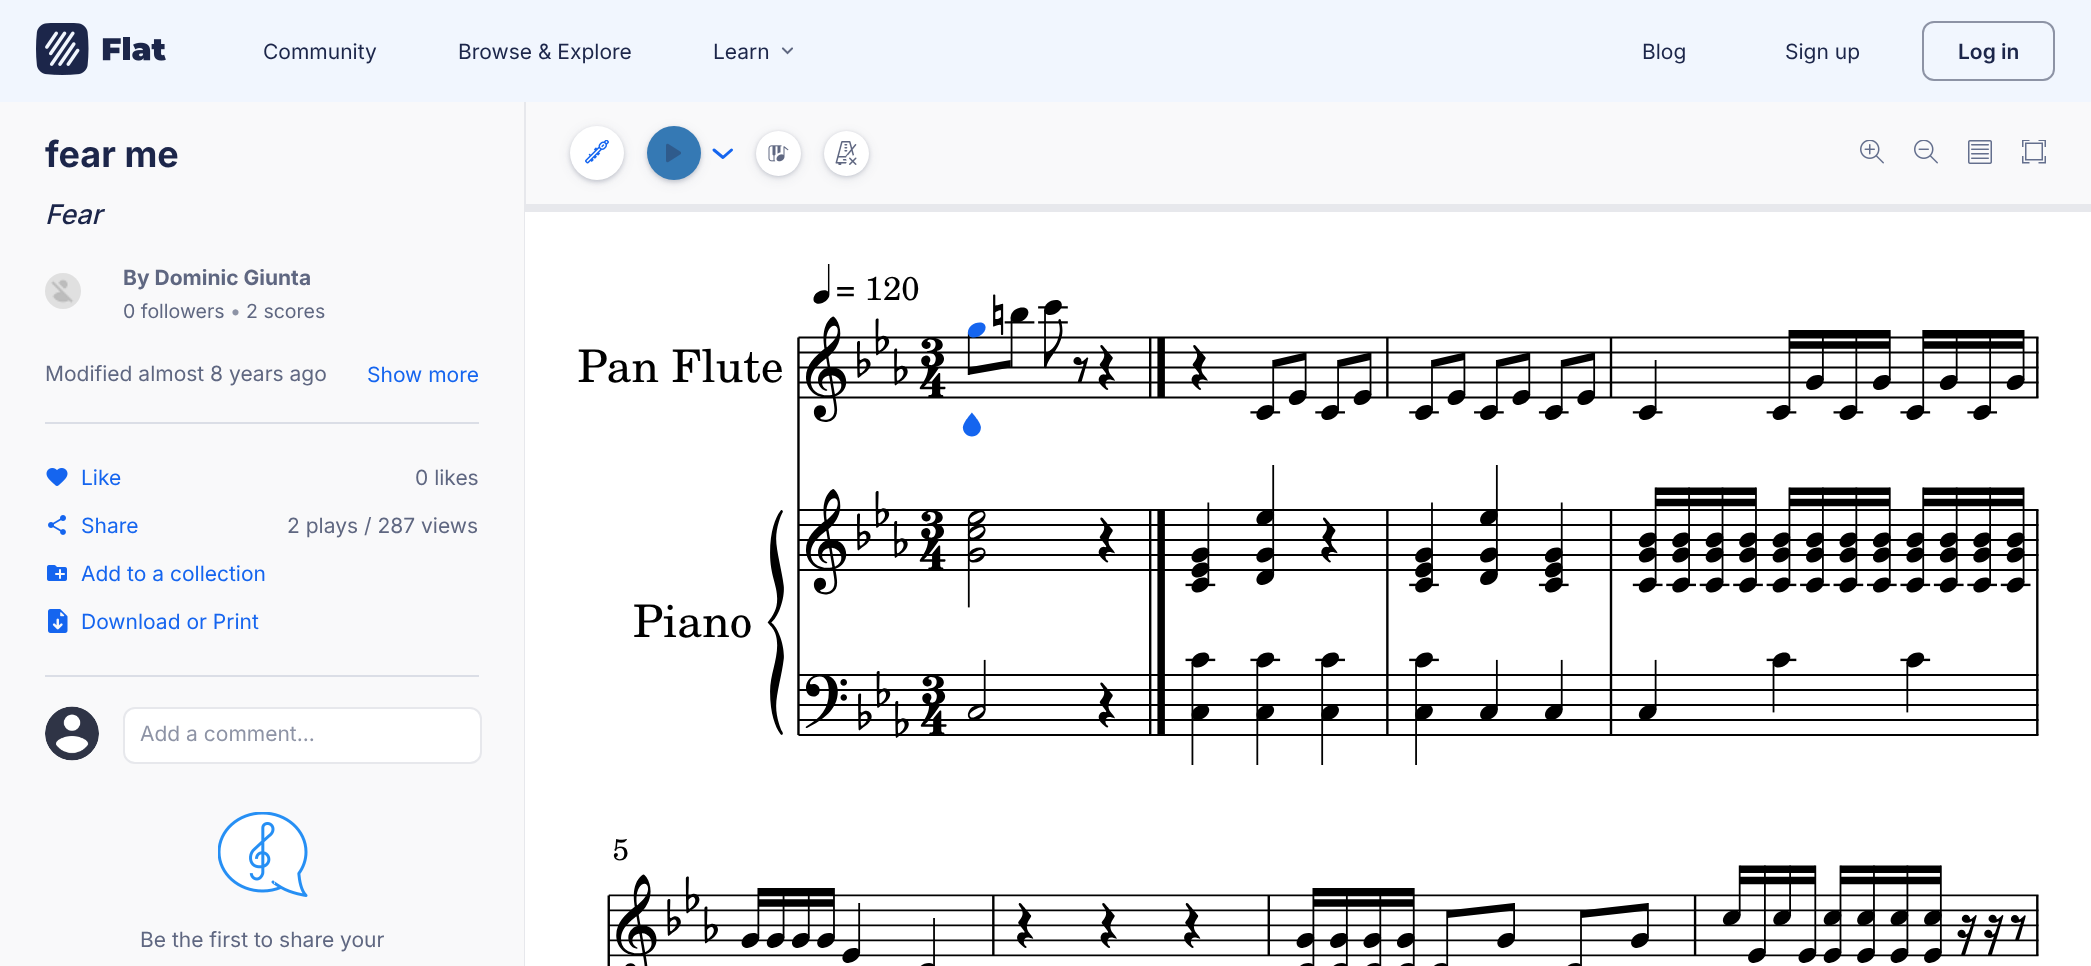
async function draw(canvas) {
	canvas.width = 2091;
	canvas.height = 966;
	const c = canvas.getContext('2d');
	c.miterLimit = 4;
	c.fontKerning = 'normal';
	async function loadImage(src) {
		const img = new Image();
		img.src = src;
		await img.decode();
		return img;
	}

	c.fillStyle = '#f1f6fe';
	c.fillRect(0, 0, 2091, 966);
	c.drawImage(await loadImage('img1.png'), 36, 23, 130, 52);
	c.font = '21px Inter';
	c.fillStyle = '#1c264a';
	for (const [text, x, y] of [
		['Community', 263, 59],
		['Browse & Explore', 458, 59],
		['Learn', 713, 59],
	]) {
		c.fillText(text, x, y);
	}
	c.drawImage(await loadImage('img2.png'), 781, 47, 12, 8);
	c.fillText('Blog', 1642, 59);
	c.fillText('Sign up', 1785, 59);
	c.beginPath();
	c.roundRect(1923, 22, 131, 58, 11);
	c.strokeStyle = '#8d93a5';
	c.lineWidth = 2;
	c.stroke();
	c.font = '600 21px Inter';
	c.fillText('Log in', 1958, 59);
	c.fillStyle = '#f9f9fa';
	c.fillRect(0, 102, 524, 864);
	c.fillStyle = '#e7e8ec';
	c.fillRect(524, 102, 2, 864);
	c.font = 'bold 36px Inter';
	c.fillStyle = '#1c264a';
	c.fillText('fear me', 45, 167);
	c.font = 'italic 500 27px Inter';
	c.fillText('Fear', 45, 224);
	c.drawImage(await loadImage('img3.png'), 45, 273, 36, 36);
	c.font = 'bold 21px Inter';
	c.fillStyle = '#5f6781';
	c.fillText('By Dominic Giunta', 123, 285);
	c.font = '19.5px Inter';
	c.fillText('0 followers', 123, 318);
	c.fillStyle = '#8d93a5';
	c.fillText('•', 230, 318);
	c.fillStyle = '#5f6781';
	c.fillText('2 scores', 246, 318);
	c.font = '21px Inter';
	c.fillText('Modified almost 8 years ago', 45, 381);
	c.fillStyle = '#1565ef';
	c.fillText('Show more', 367, 382);
	c.fillStyle = '#dbdee6';
	c.fillRect(45, 422, 434, 2);
	c.drawImage(await loadImage('img4.png'), 46, 468, 22, 18);
	c.fillStyle = '#1565ef';
	c.fillText('Like', 81, 485);
	c.fillStyle = '#5f6781';
	c.fillText('0 likes', 415, 485);
	c.drawImage(await loadImage('img5.png'), 48, 515, 18, 20);
	c.fillStyle = '#1565ef';
	c.fillText('Share', 81, 533);
	c.fillStyle = '#5f6781';
	c.fillText('2 plays / 287 views', 287, 533);
	c.drawImage(await loadImage('img6.png'), 47, 565, 20, 16);
	c.fillStyle = '#1565ef';
	c.fillText('Add to a collection', 81, 581);
	c.drawImage(await loadImage('img7.png'), 48, 609, 20, 24);
	c.fillText('Download or Print', 81, 629);
	c.fillStyle = '#dbdee6';
	c.fillRect(45, 675, 434, 2);
	c.fillStyle = '#fff';
	c.beginPath();
	c.arc(72, 734, 27, 0, 2 * Math.PI);
	c.fill();
	c.drawImage(await loadImage('img8.png'), 45, 706, 54, 55);
	c.beginPath();
	c.roundRect(124, 708, 357, 55, 11);
	c.fill();
	c.strokeStyle = '#e7e8ec';
	c.stroke();
	c.fillStyle = '#8d93a5';
	c.fillText('Add a comment...', 140, 741);
	c.drawImage(await loadImage('img9.png'), 218, 812, 90, 85);
	c.fillStyle = '#5f6781';
	c.fillText('Be the first to share your', 140, 947);
	c.fillStyle = '#f9f9fa';
	c.fillRect(526, 102, 1565, 102);
	c.fillStyle = '#28304f1a';
	c.filter = 'blur(6px)';
	c.beginPath();
	c.roundRect(570, 128, 54, 54, 27);
	c.fill();
	c.filter = 'none';
	c.fillStyle = '#28304f33';
	c.filter = 'blur(2px)';
	c.beginPath();
	c.roundRect(570, 128, 54, 54, 27);
	c.fill();
	c.filter = 'none';
	c.fillStyle = '#fff';
	c.beginPath();
	c.arc(597, 153, 27, 0, 2 * Math.PI);
	c.fill();
	c.drawImage(await loadImage('img10.png'), 585, 140, 24, 24);
	c.fillStyle = '#28304f33';
	c.filter = 'blur(2px)';
	c.beginPath();
	c.roundRect(647, 128, 54, 54, 27);
	c.fill();
	c.filter = 'none';
	c.fillStyle = '#28304f1a';
	c.filter = 'blur(6px)';
	c.beginPath();
	c.roundRect(647, 129, 54, 54, 27);
	c.fill();
	c.filter = 'none';
	c.fillStyle = '#3579b4';
	c.beginPath();
	c.arc(674, 153, 27, 0, 2 * Math.PI);
	c.fill();
	c.drawImage(await loadImage('img11.png'), 666, 143, 15, 20);
	c.beginPath();
	c.moveTo(714, 150);
	c.lineTo(723, 157.5);
	c.lineTo(731.5, 150);
	c.strokeStyle = '#1565ef';
	c.lineWidth = 3;
	c.lineCap = 'round';
	c.lineJoin = 'round';
	c.stroke();
	c.fillStyle = '#28304f33';
	c.filter = 'blur(2px)';
	c.beginPath();
	c.roundRect(756, 132, 45, 45, 22.5);
	c.fill();
	c.filter = 'none';
	c.fillStyle = '#28304f1a';
	c.filter = 'blur(6px)';
	c.beginPath();
	c.roundRect(756, 134, 45, 45, 22.5);
	c.fill();
	c.filter = 'none';
	c.fillStyle = '#fff';
	c.beginPath();
	c.arc(778.5, 153.5, 22.5, 0, 2 * Math.PI);
	c.fill();
	c.drawImage(await loadImage('img12.png'), 768, 145, 21, 17);
	c.fillStyle = '#28304f33';
	c.filter = 'blur(2px)';
	c.beginPath();
	c.roundRect(824, 132, 45, 45, 22.5);
	c.fill();
	c.filter = 'none';
	c.fillStyle = '#28304f1a';
	c.filter = 'blur(6px)';
	c.beginPath();
	c.roundRect(824, 134, 45, 45, 22.5);
	c.fill();
	c.filter = 'none';
	c.fillStyle = '#fff';
	c.beginPath();
	c.arc(846.5, 153.5, 22.5, 0, 2 * Math.PI);
	c.fill();
	c.drawImage(await loadImage('img13.png'), 835, 141, 22, 24);
	c.drawImage(await loadImage('img14.png'), 1860, 140, 24, 24);
	c.drawImage(await loadImage('img15.png'), 1914, 140, 24, 24);
	c.drawImage(await loadImage('img16.png'), 1968, 140, 24, 24);
	c.drawImage(await loadImage('img17.png'), 2022, 140, 24, 24);
	c.fillStyle = '#e7e8ec';
	c.fillRect(525, 204, 1566, 8);
	c.fillStyle = '#fff';
	c.fillRect(525, 212, 1566, 754);
	c.drawImage(await loadImage('img18.png'), 578, 264, 1461, 501);
	c.drawImage(await loadImage('img19.png'), 607, 839, 1432, 127);
}

draw(document.querySelector('canvas'));
